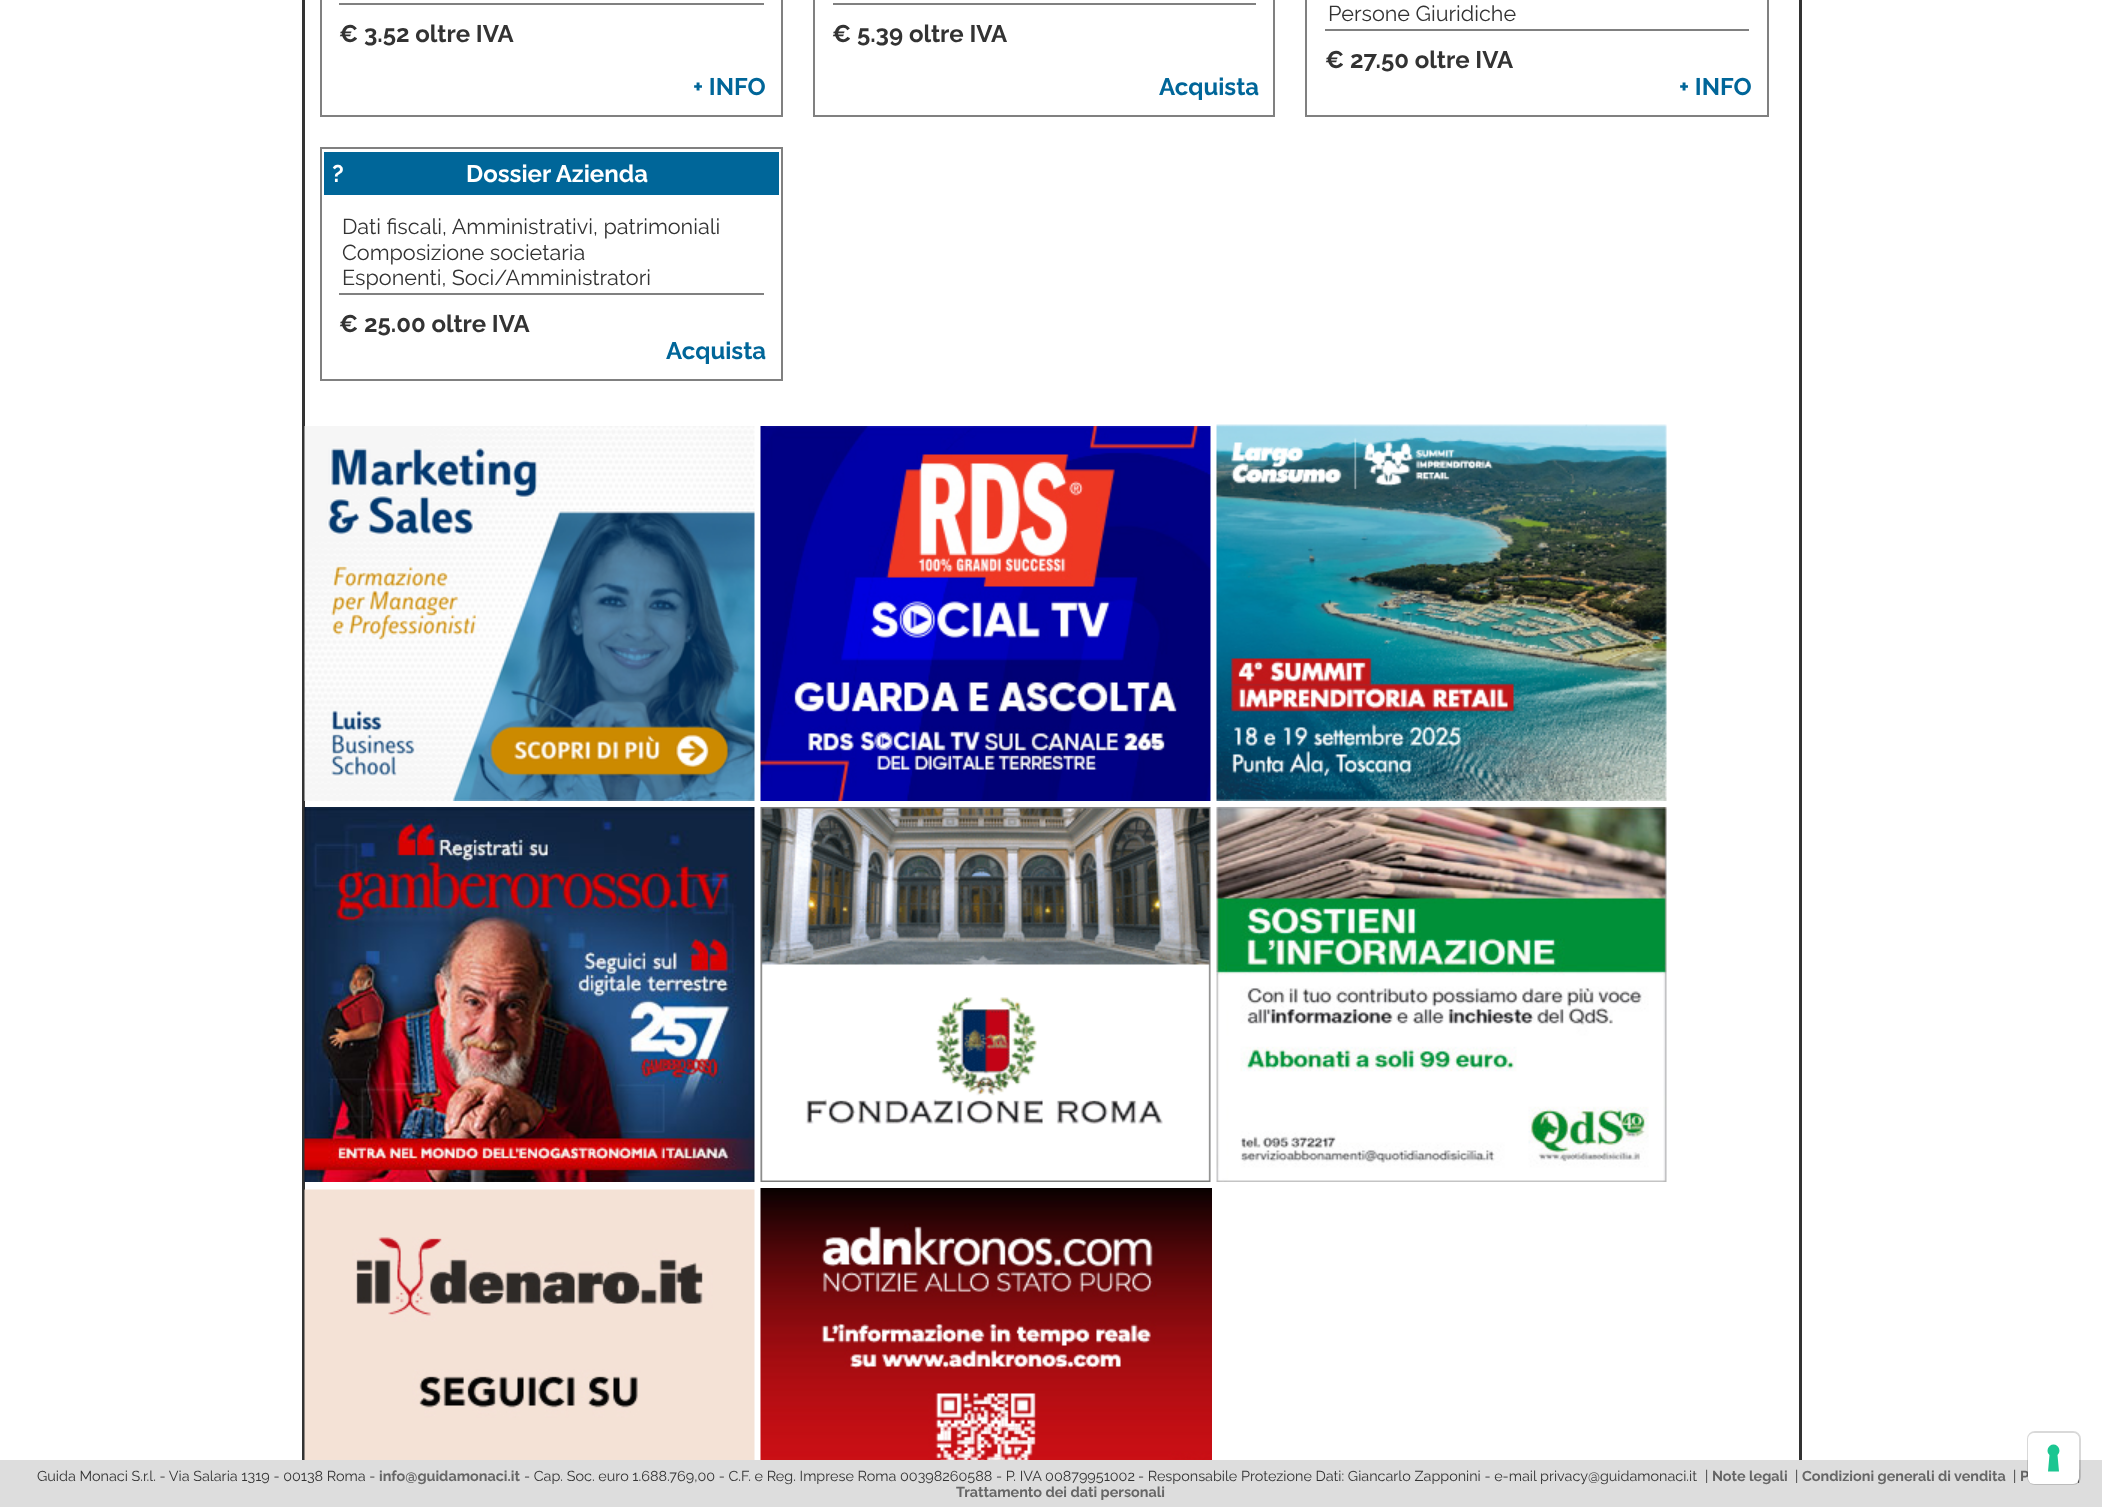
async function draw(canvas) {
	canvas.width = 2102;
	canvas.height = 1507;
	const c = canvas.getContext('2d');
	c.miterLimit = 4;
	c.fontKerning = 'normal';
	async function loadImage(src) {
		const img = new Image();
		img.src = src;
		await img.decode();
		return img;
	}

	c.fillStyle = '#fff';
	c.fillRect(0, 0, 2102, 1507);
	c.strokeStyle = '#333';
	c.lineWidth = 3;
	c.strokeRect(303.5, -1.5, 1497, 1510);
	c.strokeStyle = '#808080';
	c.lineWidth = 2;
	c.strokeRect(321, -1, 461, 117);
	c.fillStyle = '#808080';
	c.fillRect(339, 3, 425, 2);
	c.font = 'bold 24px Raleway';
	c.fillStyle = '#333';
	c.fillText('€ 3.52 oltre IVA', 339, 42);
	c.fillStyle = '#069';
	c.fillText('+ INFO', 693, 95);
	c.strokeRect(814, -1, 460, 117);
	c.fillStyle = '#808080';
	c.fillRect(833, 3, 423, 2);
	c.fillStyle = '#333';
	c.fillText('€ 5.39 oltre IVA', 832, 42);
	c.fillStyle = '#069';
	c.fillText('Acquista', 1159, 95);
	c.strokeRect(1306, -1, 462, 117);
	c.fillStyle = '#808080';
	c.fillRect(1325, 29, 424, 2);
	c.font = '21.6px Raleway';
	c.fillStyle = '#333';
	c.fillText('Persone Giuridiche', 1328, 21);
	c.font = 'bold 24px Raleway';
	c.fillText('€ 27.50 oltre IVA', 1325, 68);
	c.fillStyle = '#069';
	c.fillText('+ INFO', 1679, 95);
	c.strokeRect(321, 148, 461, 232);
	c.fillRect(324, 152, 455, 43);
	c.fillStyle = '#fff';
	c.fillText('?', 332, 182);
	c.fillText('Dossier Azienda', 466, 182);
	c.fillStyle = '#808080';
	c.fillRect(339, 293, 425, 2);
	c.font = '21.6px Raleway';
	c.fillStyle = '#333';
	for (const [text, x, y] of [
		['Dati fiscali, Amministrativi, patrimoniali', 342, 234],
		['Composizione societaria', 342, 260],
		['Esponenti, Soci/Amministratori', 342, 285],
	]) {
		c.fillText(text, x, y);
	}
	c.font = 'bold 24px Raleway';
	c.fillText('€ 25.00 oltre IVA', 339, 332);
	c.fillStyle = '#069';
	c.fillText('Acquista', 666, 359);
	c.drawImage(await loadImage('img1.png'), 304, 426, 451, 375);
	c.drawImage(await loadImage('img2.png'), 760, 426, 451, 375);
	c.drawImage(await loadImage('img3.png'), 1216, 424, 451, 377);
	c.drawImage(await loadImage('img4.png'), 304, 807, 451, 375);
	c.drawImage(await loadImage('img5.png'), 760, 807, 451, 375);
	c.drawImage(await loadImage('img6.png'), 1216, 807, 451, 375);
	c.drawImage(await loadImage('img7.png'), 304, 1189, 451, 271);
	c.drawImage(await loadImage('img8.png'), 760, 1188, 452, 272);
	c.fillStyle = '#ddd';
	c.fillRect(0, 1460, 2102, 47);
	c.font = 'bold 14.4px Raleway';
	c.fillStyle = '#666';
	c.fillText('P', 2020, 1481);
	c.font = '14.4px Raleway';
	c.fillStyle = '#333';
	c.fillText('|', 2077, 1481);
	c.beginPath();
	c.roundRect(2028, 1432, 52, 52, 7);
	c.strokeStyle = '#00000026';
	c.stroke();
	c.fillStyle = '#fff';
	c.beginPath();
	c.roundRect(2028, 1433, 51, 51, 6);
	c.fill();
	c.fillStyle = '#1cc691';
	c.beginPath();
	c.moveTo(2053.5, 1444.5);
	c.bezierCurveTo(2059, 1444.5, 2061.5, 1451.5, 2057.5, 1455);
	c.lineTo(2059, 1471.5);
	c.lineTo(2048, 1471.5);
	c.lineTo(2049.5, 1455);
	c.bezierCurveTo(2045.5, 1451.5, 2048, 1444.5, 2053.5, 1444.5);
	c.closePath();
	c.fill('evenodd');
	c.fillStyle = '#333';
	c.fillText('Guida Monaci S.r.l. - Via Salaria 1319 - 00138 Roma -', 37, 1481);
	c.font = 'bold 14.4px Raleway';
	c.fillStyle = '#666';
	c.fillText('info@guidamonaci.it', 379, 1481);
	c.font = '14.4px Raleway';
	c.fillStyle = '#333';
	for (const [text, x, y] of [
		['- Cap. Soc. euro 1.688.769,00 - C.F. e Reg. Imprese Roma 00398260588 - P. IVA 00879951002', 524, 1481],
		['- Responsabile Protezione Dati: Giancarlo Zapponini - e-mail privacy@guidamonaci.it', 1138, 1481],
		['|', 1705, 1481],
	]) {
		c.fillText(text, x, y);
	}
	c.font = 'bold 14.4px Raleway';
	c.fillStyle = '#666';
	c.fillText('Note legali', 1712, 1481);
	c.font = '14.4px Raleway';
	c.fillStyle = '#333';
	c.fillText('|', 1795, 1481);
	c.font = 'bold 14.4px Raleway';
	c.fillStyle = '#666';
	c.fillText('Condizioni generali di vendita', 1802, 1481);
	c.font = '14.4px Raleway';
	c.fillStyle = '#333';
	c.fillText('|', 2013, 1481);
	c.font = 'bold 14.4px Raleway';
	c.fillStyle = '#666';
	c.fillText('Trattamento dei dati personali', 956, 1497);
}

draw(document.querySelector('canvas'));
